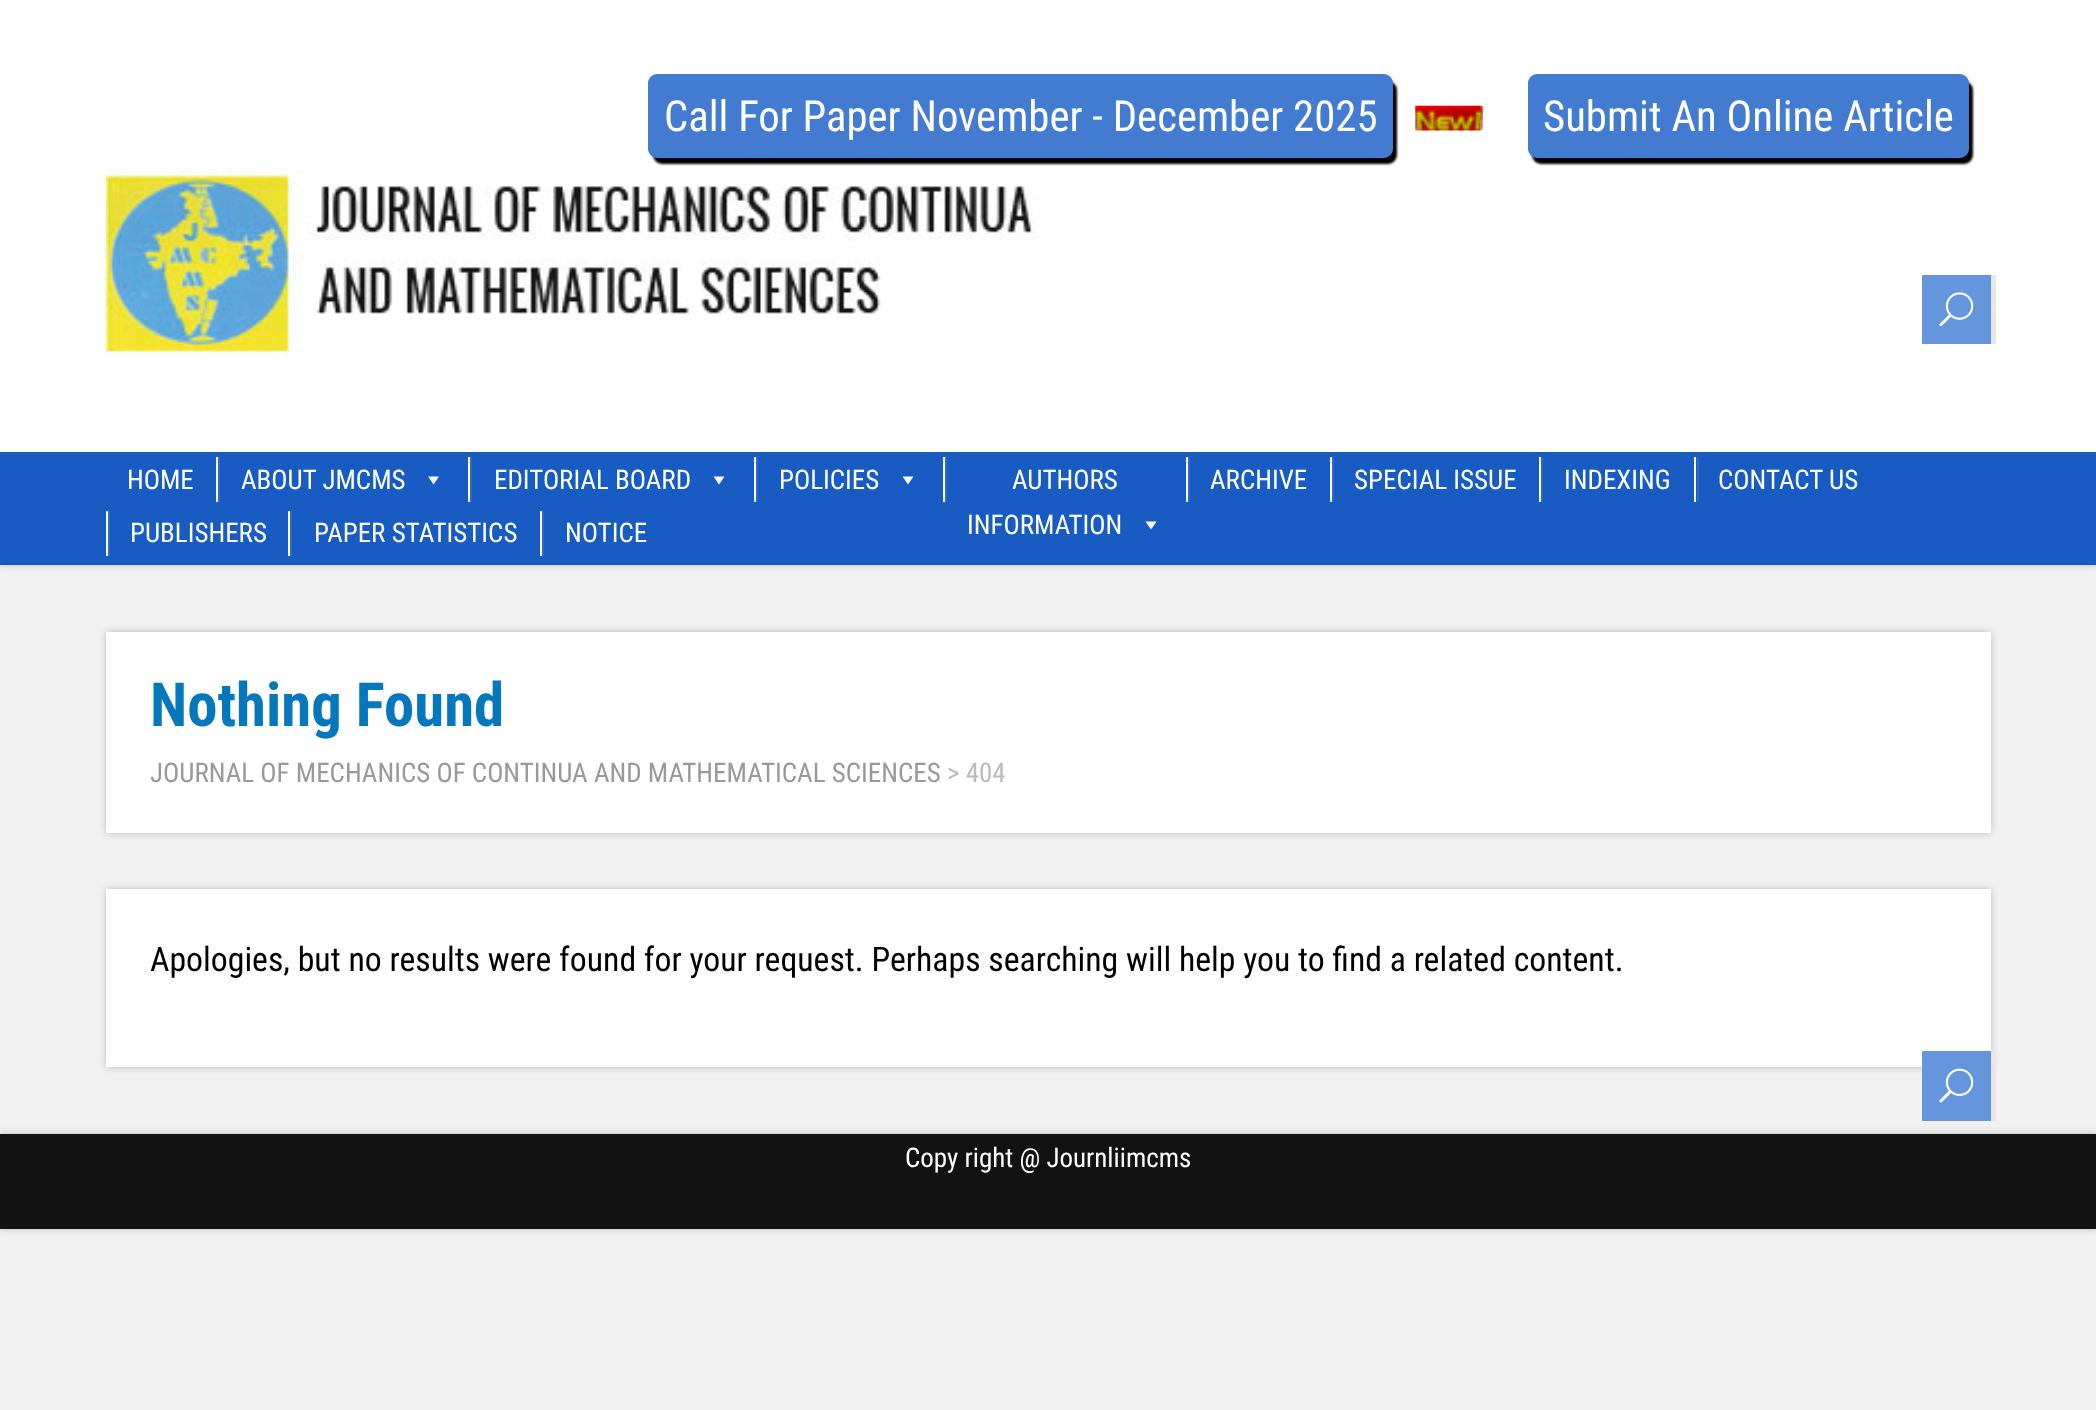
async function draw(canvas) {
	canvas.width = 2096;
	canvas.height = 1410;
	const c = canvas.getContext('2d');
	c.miterLimit = 4;
	c.fontKerning = 'normal';
	async function loadImage(src) {
		const img = new Image();
		img.src = src;
		await img.decode();
		return img;
	}

	c.fillStyle = '#f1f1f1';
	c.fillRect(0, 0, 2096, 1410);
	c.fillStyle = '#bbb';
	c.filter = 'blur(3.5px)';
	c.beginPath();
	c.rect(0, 0, 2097, 565);
	c.fill();
	c.filter = 'none';
	c.fillStyle = '#fff';
	c.fillRect(0, 0, 2096, 452);
	c.fillStyle = '#000';
	c.filter = 'blur(1px)';
	c.beginPath();
	c.roundRect(653, 81, 744, 83, 9);
	c.fill();
	c.filter = 'none';
	c.fillStyle = '#437bd0';
	c.beginPath();
	c.roundRect(649, 75, 743, 82, 8);
	c.fill();
	c.strokeStyle = '#437bd0';
	c.lineWidth = 2;
	c.stroke();
	c.font = '42.75px Roboto Condensed';
	c.fillStyle = '#fff';
	c.fillText('Call For Paper November - December 2025', 664, 131);
	c.drawImage(await loadImage('img1.png'), 1415, 105, 68, 26);
	c.fillStyle = '#000';
	c.filter = 'blur(1px)';
	c.beginPath();
	c.roundRect(1532, 81, 441, 83, 9);
	c.fill();
	c.filter = 'none';
	c.fillStyle = '#437bd0';
	c.beginPath();
	c.roundRect(1529, 75, 439, 82, 8);
	c.fill();
	c.stroke();
	c.fillStyle = '#fff';
	c.fillText('Submit An Online Article', 1543, 131);
	c.drawImage(await loadImage('img2.png'), 105, 169, 936, 189);
	c.fillStyle = '#6596dd';
	c.fillRect(1922, 275, 69, 69);
	c.drawImage(await loadImage('img3.png'), 1939, 292, 35, 35);
	c.fillStyle = '#e6e6e6';
	c.fillRect(1991, 275, 5, 69);
	c.fillStyle = '#175bc3';
	c.fillRect(0, 452, 2096, 113);
	c.font = '27px Roboto Condensed';
	c.fillStyle = '#fff';
	c.fillText('HOME', 127, 489);
	c.fillStyle = '#2e6bc9';
	c.fillRect(218, 457, 2, 45);
	c.fillStyle = '#fff';
	c.fillRect(216, 457, 2, 45);
	c.fillText('ABOUT JMCMS', 241, 489);
	c.beginPath();
	c.moveTo(439, 476.5);
	c.lineTo(433.5, 484.5);
	c.lineTo(428, 476.5);
	c.closePath();
	c.fill();
	c.fillStyle = '#2e6bc9';
	c.fillRect(470, 457, 2, 45);
	c.fillStyle = '#fff';
	c.fillRect(468, 457, 2, 45);
	c.fillText('EDITORIAL BOARD', 494, 489);
	c.beginPath();
	c.moveTo(724.5, 476.5);
	c.lineTo(719, 484.5);
	c.lineTo(713.5, 476.5);
	c.closePath();
	c.fill();
	c.fillStyle = '#2e6bc9';
	c.fillRect(756, 457, 2, 45);
	c.fillStyle = '#fff';
	c.fillRect(754, 457, 2, 45);
	c.fillText('POLICIES', 779, 489);
	c.beginPath();
	c.moveTo(913.5, 476.5);
	c.lineTo(908, 484.5);
	c.lineTo(902.5, 476.5);
	c.closePath();
	c.fill();
	c.fillStyle = '#2e6bc9';
	c.fillRect(945, 457, 2, 45);
	c.fillStyle = '#fff';
	c.fillRect(943, 457, 2, 45);
	c.fillText('AUTHORS', 1012, 489);
	c.fillText('INFORMATION', 967, 534);
	c.beginPath();
	c.moveTo(1156.5, 521.5);
	c.lineTo(1151, 529.5);
	c.lineTo(1145.5, 521.5);
	c.closePath();
	c.fill();
	c.fillStyle = '#2e6bc9';
	c.fillRect(1188, 457, 2, 45);
	c.fillStyle = '#fff';
	c.fillRect(1186, 457, 2, 45);
	c.fillText('ARCHIVE', 1210, 489);
	c.fillStyle = '#2e6bc9';
	c.fillRect(1332, 457, 2, 45);
	c.fillStyle = '#fff';
	c.fillRect(1330, 457, 2, 45);
	c.fillText('SPECIAL ISSUE', 1354, 489);
	c.fillStyle = '#2e6bc9';
	c.fillRect(1541, 457, 2, 45);
	c.fillStyle = '#fff';
	c.fillRect(1539, 457, 2, 45);
	c.fillText('INDEXING', 1564, 489);
	c.fillStyle = '#2e6bc9';
	c.fillRect(1697, 457, 2, 45);
	c.fillStyle = '#fff';
	c.fillRect(1694, 457, 2, 45);
	c.fillText('CONTACT US', 1718, 489);
	c.fillStyle = '#2e6bc9';
	c.fillRect(108, 511, 2, 45);
	c.fillStyle = '#fff';
	c.fillRect(106, 511, 2, 45);
	c.fillText('PUBLISHERS', 130, 542);
	c.fillStyle = '#2e6bc9';
	c.fillRect(290, 511, 2, 45);
	c.fillStyle = '#fff';
	c.fillRect(288, 511, 2, 45);
	c.fillText('PAPER STATISTICS', 314, 542);
	c.fillStyle = '#2e6bc9';
	c.fillRect(542, 511, 2, 45);
	c.fillStyle = '#fff';
	c.fillRect(540, 511, 2, 45);
	c.fillText('NOTICE', 565, 542);
	c.fillStyle = '#bbb';
	c.filter = 'blur(3.5px)';
	c.beginPath();
	c.rect(106, 632, 1885, 201);
	c.fill();
	c.filter = 'none';
	c.fillStyle = '#fff';
	c.fillRect(106, 632, 1885, 201);
	c.font = 'bold 60.75px Roboto Condensed';
	c.fillStyle = '#0577bd';
	c.fillText('Nothing Found', 150, 726);
	c.font = '27px Roboto Condensed';
	c.fillStyle = '#999';
	c.fillText('JOURNAL OF MECHANICS OF CONTINUA AND MATHEMATICAL SCIENCES', 150, 782);
	c.fillStyle = '#bbb';
	c.fillText('> 404', 947, 782);
	c.filter = 'blur(3.5px)';
	c.beginPath();
	c.rect(106, 889, 1885, 178);
	c.fill();
	c.filter = 'none';
	c.fillStyle = '#fff';
	c.fillRect(106, 889, 1885, 178);
	c.font = '33.75px Roboto Condensed';
	c.fillStyle = '#000';
	c.fillText('Apologies, but no results were found for your request. Perhaps searching will help you to find a related content.', 150, 971);
	c.fillStyle = '#6596dd';
	c.fillRect(1922, 1051, 69, 70);
	c.drawImage(await loadImage('img4.png'), 1939, 1068, 35, 35);
	c.fillStyle = '#e6e6e6';
	c.fillRect(1991, 1051, 5, 70);
	c.fillStyle = '#bbb';
	c.filter = 'blur(3.5px)';
	c.beginPath();
	c.rect(0, 1134, 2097, 95);
	c.fill();
	c.filter = 'none';
	c.fillStyle = '#121212';
	c.fillRect(0, 1134, 2096, 95);
	c.font = '27px Roboto Condensed';
	c.fillStyle = '#fff';
	c.fillText('Copy right @ Journliimcms', 905, 1167);
}

draw(document.querySelector('canvas'));
